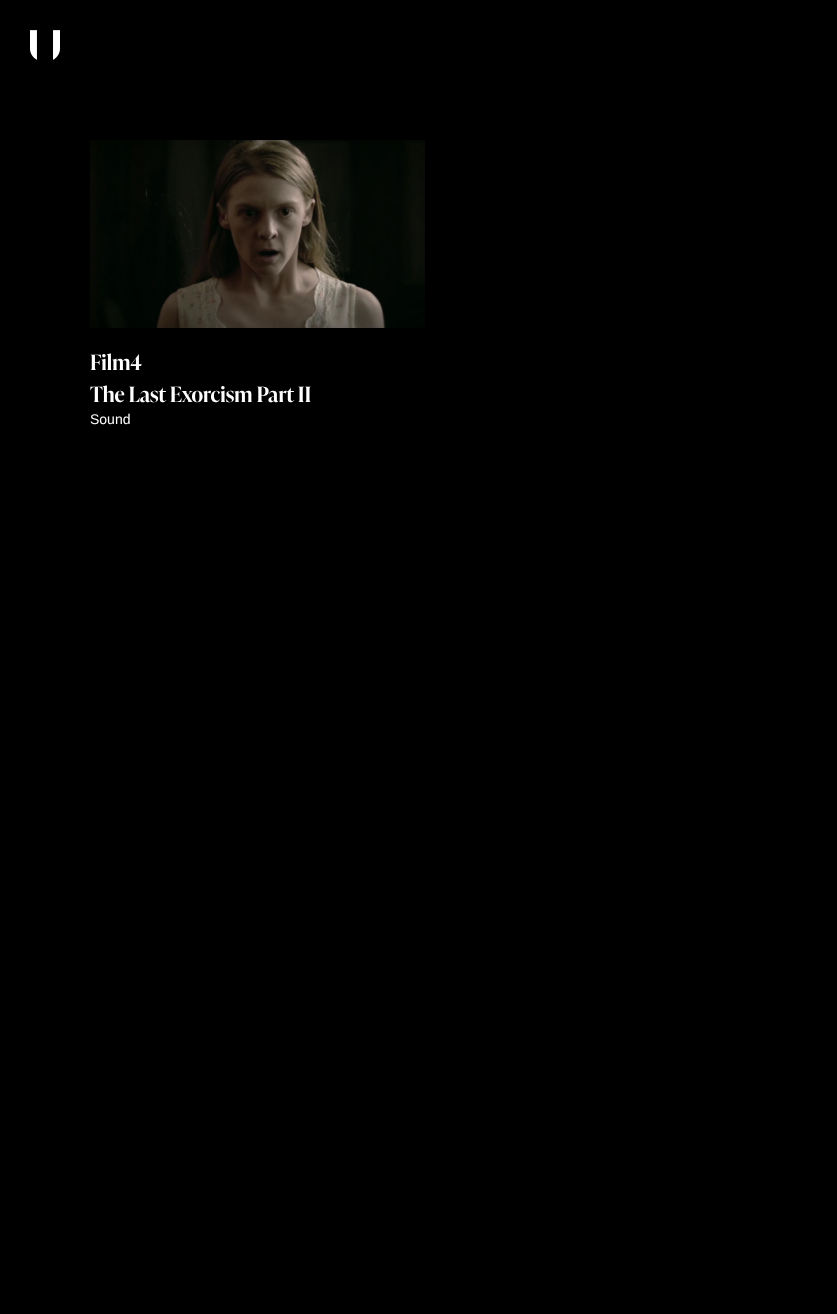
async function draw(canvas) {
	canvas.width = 837;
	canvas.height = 1314;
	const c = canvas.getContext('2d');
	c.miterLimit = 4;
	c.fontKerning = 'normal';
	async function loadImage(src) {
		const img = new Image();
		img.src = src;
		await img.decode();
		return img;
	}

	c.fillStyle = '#000';
	c.fillRect(0, 0, 837, 1314);
	c.drawImage(await loadImage('img1.png'), 30, 30, 30, 30);
	c.drawImage(await loadImage('img2.png'), 90, 140, 335, 188);
	c.font = '600 21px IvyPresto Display';
	c.fillStyle = '#fff';
	c.fillText('Film4', 90, 370);
	c.fillText('The Last Exorcism Part II', 90, 402);
	c.font = '14px Liberation Sans';
	c.fillText('Sound', 90, 424);
}

draw(document.querySelector('canvas'));
